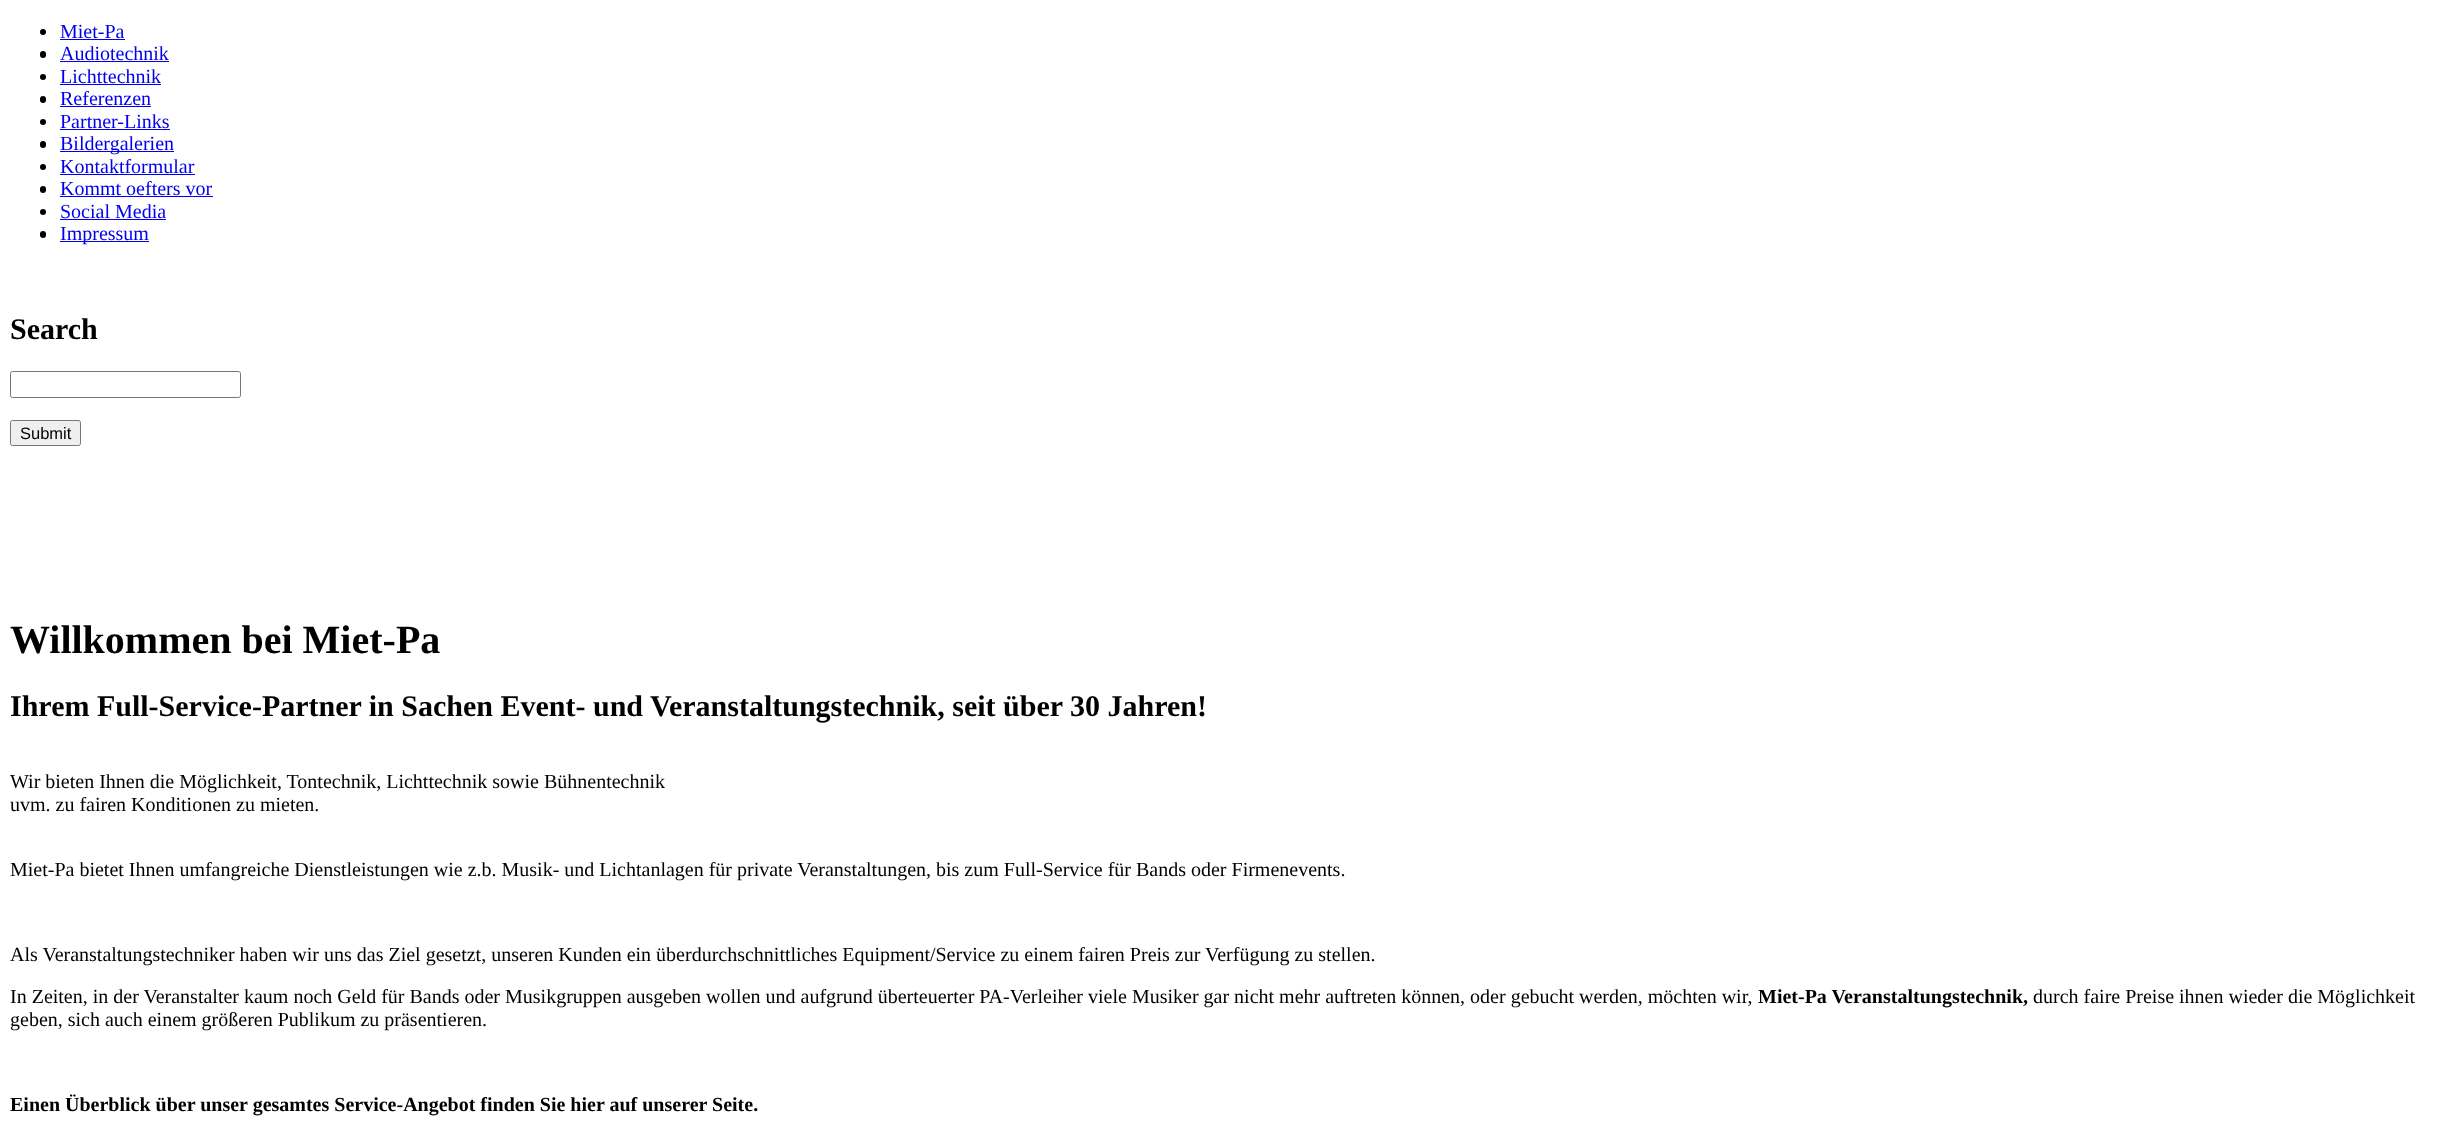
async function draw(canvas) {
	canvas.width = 2460;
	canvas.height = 1148;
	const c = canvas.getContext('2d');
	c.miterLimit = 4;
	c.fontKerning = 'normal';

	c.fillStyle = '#fff';
	c.fillRect(0, 0, 2460, 1148);
	c.fillStyle = '#000';
	c.beginPath();
	c.arc(43, 32, 3, 0, 2 * Math.PI);
	c.fill();
	c.font = '20px Liberation Serif';
	c.fillStyle = '#00e';
	c.fillText('Miet-Pa', 60, 38);
	c.fillRect(60, 39, 65, 1);
	c.fillStyle = '#000';
	c.beginPath();
	c.roundRect(40, 51, 6, 7, 3);
	c.fill();
	c.fillStyle = '#00e';
	c.fillText('Audiotechnik', 60, 60);
	c.fillRect(60, 61, 109, 1);
	c.fillStyle = '#000';
	c.beginPath();
	c.arc(43, 77, 3, 0, 2 * Math.PI);
	c.fill();
	c.fillStyle = '#00e';
	c.fillText('Lichttechnik', 60, 83);
	c.fillRect(60, 84, 101, 1);
	c.fillStyle = '#000';
	c.beginPath();
	c.roundRect(40, 96, 6, 7, 3);
	c.fill();
	c.fillStyle = '#00e';
	c.fillText('Referenzen', 60, 105);
	c.fillRect(60, 106, 91, 1);
	c.fillStyle = '#000';
	c.beginPath();
	c.arc(43, 122, 3, 0, 2 * Math.PI);
	c.fill();
	c.fillStyle = '#00e';
	c.fillText('Partner-Links', 60, 128);
	c.fillRect(60, 129, 110, 1);
	c.fillStyle = '#000';
	c.beginPath();
	c.roundRect(40, 141, 6, 7, 3);
	c.fill();
	c.fillStyle = '#00e';
	c.fillRect(60, 151, 114, 1);
	c.fillText('Bildergalerien', 60, 150);
	c.fillStyle = '#000';
	c.beginPath();
	c.arc(43, 167, 3, 0, 2 * Math.PI);
	c.fill();
	c.fillStyle = '#00e';
	c.fillText('Kontaktformular', 60, 173);
	c.fillRect(60, 174, 135, 1);
	c.fillStyle = '#000';
	c.beginPath();
	c.roundRect(40, 186, 6, 7, 3);
	c.fill();
	c.fillStyle = '#00e';
	c.fillText('Kommt oefters vor', 60, 195);
	c.fillRect(60, 196, 153, 1);
	c.fillStyle = '#000';
	c.beginPath();
	c.arc(43, 212, 3, 0, 2 * Math.PI);
	c.fill();
	c.fillStyle = '#00e';
	c.fillText('Social Media', 60, 218);
	c.fillRect(60, 219, 106, 1);
	c.fillStyle = '#000';
	c.beginPath();
	c.roundRect(40, 231, 6, 7, 3);
	c.fill();
	c.fillStyle = '#00e';
	c.fillRect(60, 241, 89, 1);
	c.fillText('Impressum', 60, 240);
	c.font = 'bold 30px Liberation Serif';
	c.fillStyle = '#000';
	c.fillText('Search', 10, 339);
	c.beginPath();
	c.roundRect(10.5, 371.5, 230, 26, 2);
	c.strokeStyle = '#767676';
	c.stroke();
	c.fillStyle = '#efefef';
	c.beginPath();
	c.roundRect(10.5, 420.5, 70, 25, 2);
	c.fill();
	c.stroke();
	c.font = '16.5px Liberation Sans';
	c.fillStyle = '#000';
	c.fillText('Submit', 20, 439);
	c.font = 'bold 40px Liberation Serif';
	c.fillText('Willkommen bei Miet-Pa', 10, 653);
	c.font = 'bold 30px Liberation Serif';
	c.fillText('Ihrem Full-Service-Partner in Sachen Event- und Veranstaltungstechnik, seit über 30 Jahren!', 10, 716);
	c.font = '20px Liberation Serif';
	for (const [text, x, y] of [
		['Wir bieten Ihnen die Möglichkeit, Tontechnik, Lichttechnik sowie Bühnentechnik', 10, 788],
		['uvm. zu fairen Konditionen zu mieten.', 10, 811],
		['Miet-Pa bietet Ihnen umfangreiche Dienstleistungen wie z.b. Musik- und Lichtanlagen für private Veranstaltungen, bis zum Full-Service für Bands oder Firmenevents.', 10, 876],
		['Als Veranstaltungstechniker haben wir uns das Ziel gesetzt, unseren Kunden ein überdurchschnittliches Equipment/Service zu einem fairen Preis zur Verfügung zu stellen.', 10, 961],
		['In Zeiten, in der Veranstalter kaum noch Geld für Bands oder Musikgruppen ausgeben wollen und aufgrund überteuerter PA-Verleiher viele Musiker gar nicht mehr auftreten können, oder gebucht werden, möchten wir,', 10, 1003],
	]) {
		c.fillText(text, x, y);
	}
	c.font = 'bold 20px Liberation Serif';
	c.fillText('Miet-Pa Veranstaltungstechnik,', 1758, 1003);
	c.font = '20px Liberation Serif';
	c.fillText('durch faire Preise ihnen wieder die Möglichkeit', 2033, 1003);
	c.fillText('geben, sich auch einem größeren Publikum zu präsentieren.', 10, 1026);
	c.font = 'bold 20px Liberation Serif';
	c.fillText('Einen Überblick über unser gesamtes Service-Angebot finden Sie hier auf unserer Seite.', 10, 1111);
}

draw(document.querySelector('canvas'));
